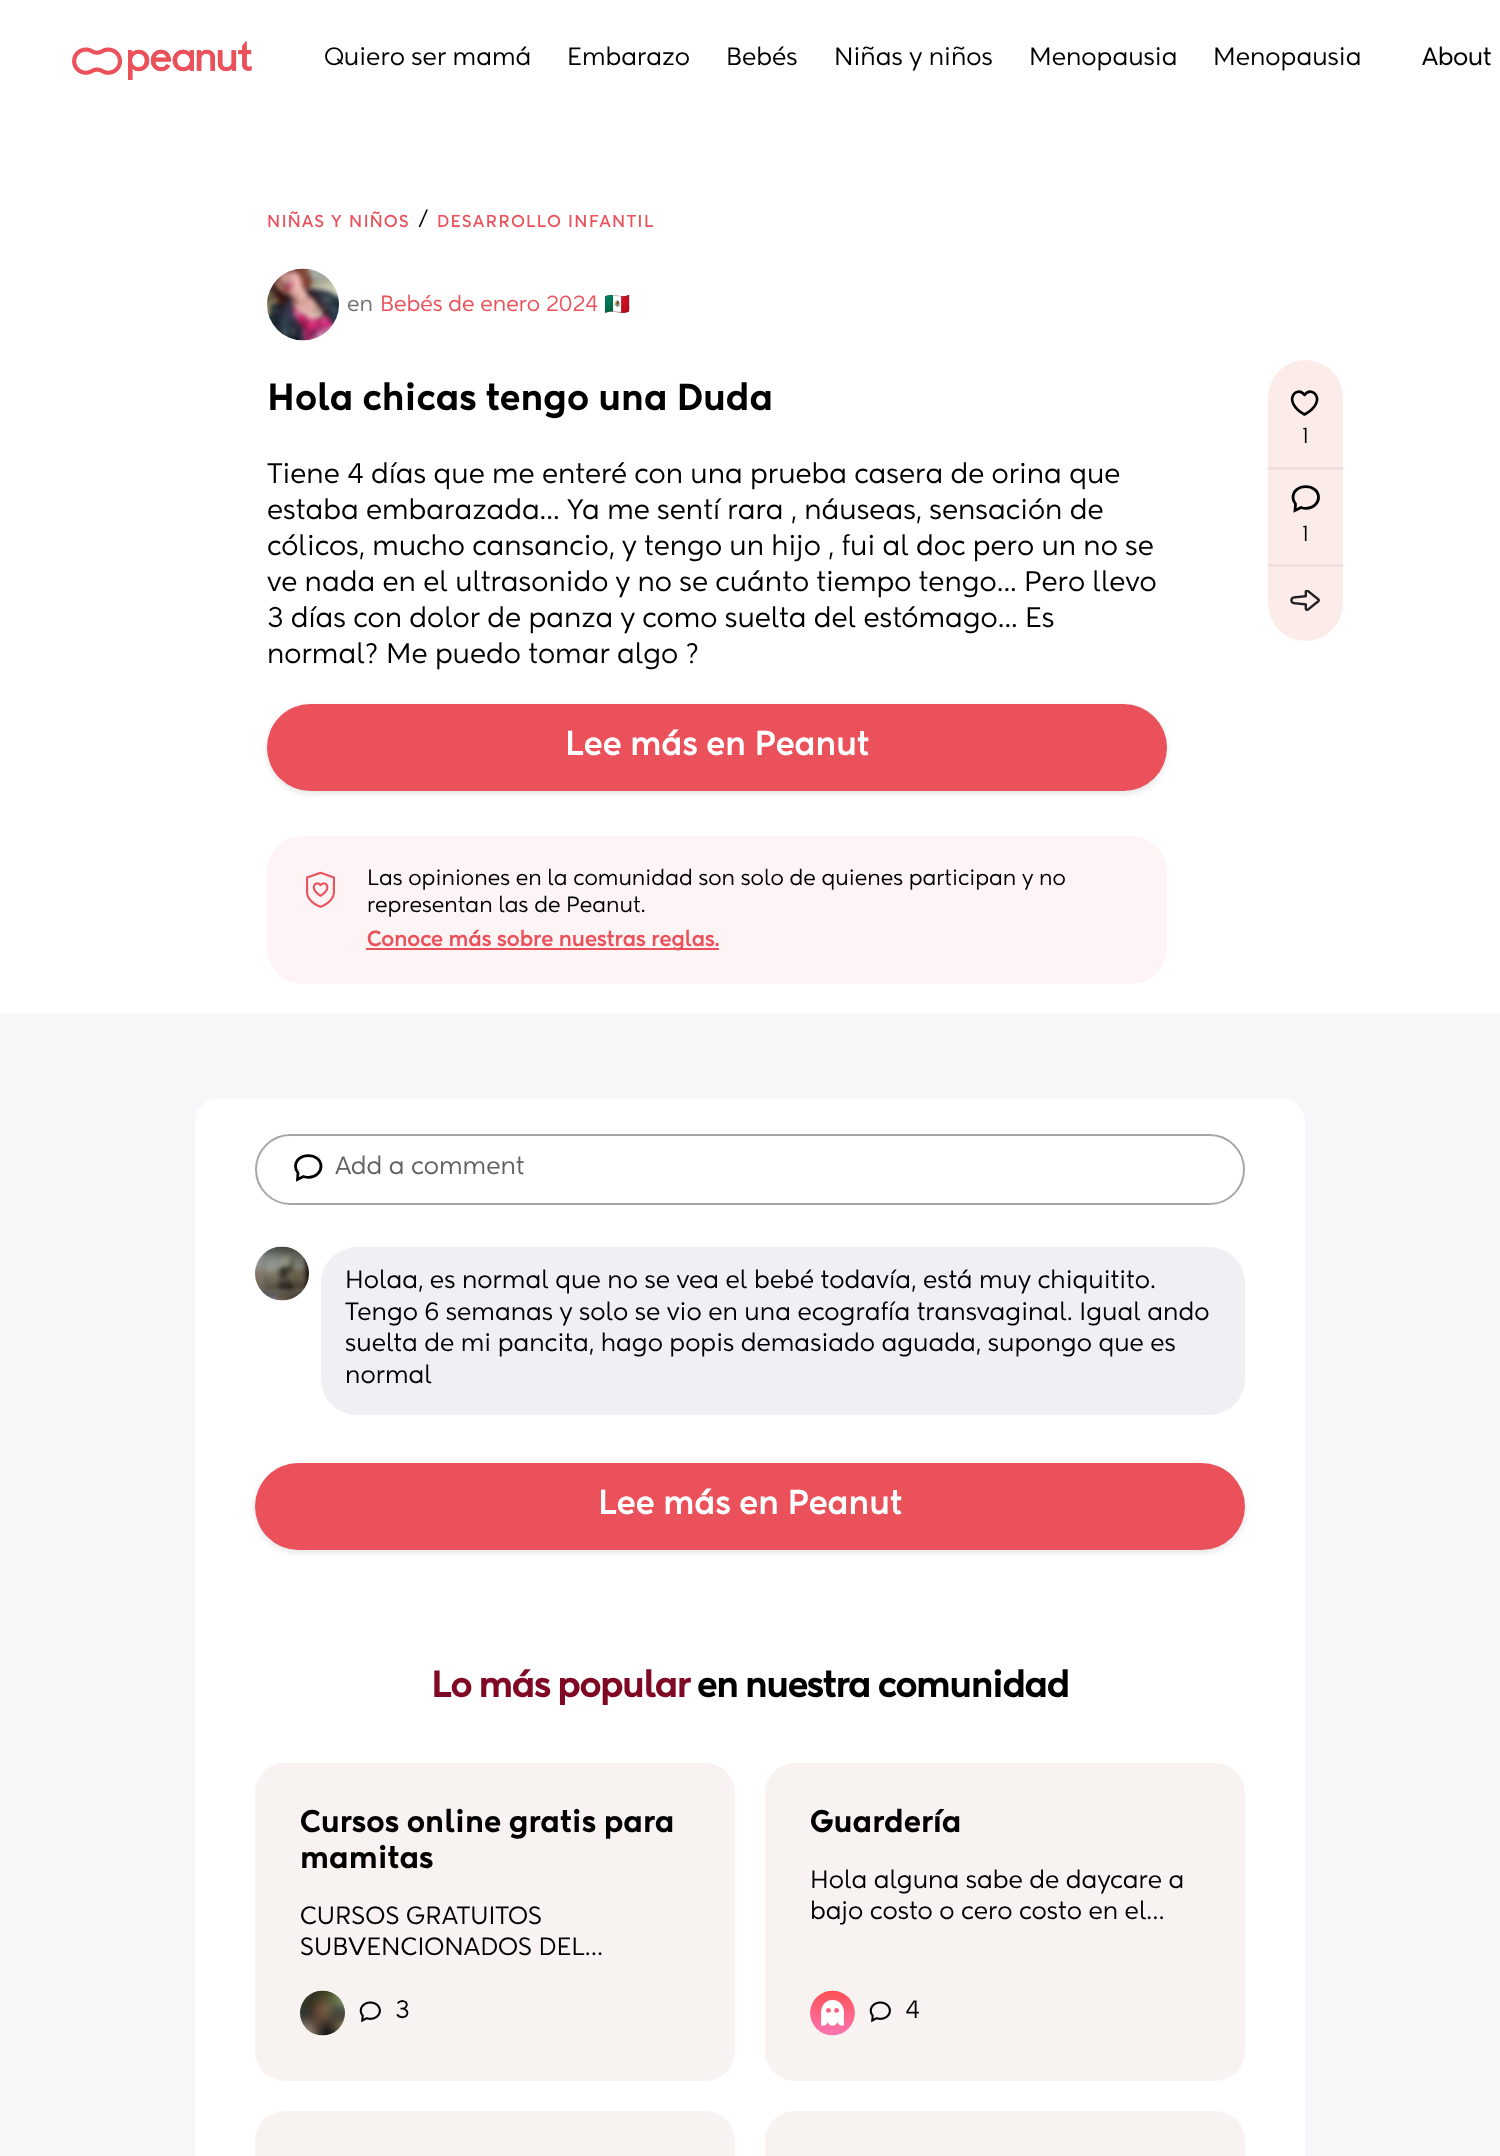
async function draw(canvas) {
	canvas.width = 1500;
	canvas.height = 2156;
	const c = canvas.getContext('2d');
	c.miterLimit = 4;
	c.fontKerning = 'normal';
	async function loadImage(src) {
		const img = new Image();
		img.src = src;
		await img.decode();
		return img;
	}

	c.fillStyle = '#fff';
	c.fillRect(0, 0, 1500, 2156);
	c.drawImage(await loadImage('img1.png'), 72, 41, 180, 39);
	c.font = '24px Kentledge';
	c.fillStyle = '#000';
	for (const [text, x, y] of [
		['Quiero ser mamá', 324, 65],
		['Embarazo', 567, 65],
		['Bebés', 726, 65],
		['Niñas y niños', 834, 65],
		['Menopausia', 1029, 65],
		['Menopausia', 1213, 65],
	]) {
		c.fillText(text, x, y);
	}
	c.font = '500 24px Kentledge';
	c.fillText('About', 1422, 65);
	c.letterSpacing = '1.5px';
	c.font = 'bold 16.5px Kentledge';
	c.fillStyle = '#ea515a';
	c.fillText('NIÑAS Y NIÑOS', 267, 227);
	c.letterSpacing = '0px';
	c.font = '24px Kentledge';
	c.fillStyle = '#000';
	c.fillText('/', 417, 227);
	c.letterSpacing = '1.5px';
	c.font = 'bold 16.5px Kentledge';
	c.fillStyle = '#ea515a';
	c.fillText('DESARROLLO INFANTIL', 437, 227);
	c.drawImage(await loadImage('img2.png'), 267, 268, 72, 73);
	c.letterSpacing = '0px';
	c.font = '21px Kentledge';
	c.fillStyle = '#727272';
	c.fillText('en', 347, 311);
	c.fillStyle = '#ea515a';
	c.fillText('Bebés de enero 2024', 380, 311);
	c.font = '21px Noto Color Emoji';
	c.fillText('🇲🇽', 604, 311);
	c.font = '900 36px Kentledge';
	c.fillStyle = '#000';
	c.fillText('Hola chicas tengo una Duda', 267, 410);
	c.font = '27px Kentledge';
	for (const [text, x, y] of [
		['Tiene 4 días que me enteré con una prueba casera de orina que', 267, 483],
		['estaba embarazada... Ya me sentí rara , náuseas, sensación de', 267, 519],
		['cólicos, mucho cansancio, y tengo un hijo , fui al doc pero un no se', 267, 555],
		['ve nada en el ultrasonido y no se cuánto tiempo tengo... Pero llevo', 267, 591],
		['3 días con dolor de panza y como suelta del estómago... Es', 267, 627],
		['normal? Me puedo tomar algo ?', 267, 663],
	]) {
		c.fillText(text, x, y);
	}
	c.fillStyle = '#fbecea';
	c.beginPath();
	c.roundRect(1268, 360, 75, 281, 37.5);
	c.fill();
	c.fillStyle = '#f3ddda';
	c.fillRect(1268, 467, 75, 3);
	c.beginPath();
	c.moveTo(1304.5, 414.5);
	c.bezierCurveTo(1328.5, 401, 1312, 384.5, 1304.5, 395);
	c.bezierCurveTo(1297, 384.5, 1281, 401, 1304.5, 414.5);
	c.strokeStyle = '#000';
	c.lineWidth = 2.6;
	c.lineCap = 'round';
	c.lineJoin = 'round';
	c.stroke();
	c.font = '21px Kentledge';
	c.fillStyle = '#000';
	c.fillText('1', 1301, 443);
	c.fillStyle = '#f3ddda';
	c.fillRect(1268, 564, 75, 3);
	c.beginPath();
	c.moveTo(1293, 497.5);
	c.bezierCurveTo(1293, 500, 1294, 502, 1295.5, 504);
	c.lineTo(1295, 510.5);
	c.lineTo(1301, 507.5);
	c.bezierCurveTo(1305.5, 509, 1311, 508.5, 1315, 505);
	c.bezierCurveTo(1317, 503, 1318.5, 500.5, 1318.5, 497.5);
	c.bezierCurveTo(1318.5, 483, 1293, 483, 1293, 497.5);
	c.closePath();
	c.lineWidth = 2.8;
	c.lineCap = 'butt';
	c.lineJoin = 'miter';
	c.stroke();
	c.fillStyle = '#000';
	c.fillText('1', 1301, 541);
	c.drawImage(await loadImage('img3.png'), 1290, 590, 30, 21);
	c.fillStyle = '#0000001a';
	c.filter = 'blur(3px)';
	c.beginPath();
	c.roundRect(267, 707, 900, 87, 43.5);
	c.fill();
	c.filter = 'none';
	c.fillStyle = '#ea515a';
	c.beginPath();
	c.roundRect(267, 704, 900, 87, 43.5);
	c.fill();
	c.font = '800 33px Kentledge';
	c.fillStyle = '#fff';
	c.fillText('Lee más en Peanut', 565, 755);
	c.fillStyle = '#fef4f5';
	c.beginPath();
	c.roundRect(267, 836, 900, 148, 36);
	c.fill();
	c.drawImage(await loadImage('img4.png'), 306, 871, 29, 37);
	c.font = '21px Kentledge';
	c.fillStyle = '#000';
	c.fillText('Las opiniones en la comunidad son solo de quienes participan y no', 367, 885);
	c.fillText('representan las de Peanut.', 367, 912);
	c.fillStyle = '#ea515a';
	c.fillRect(366, 948, 353, 2);
	c.font = '800 21px Kentledge';
	c.fillText('Conoce más sobre nuestras reglas.', 367, 946);
	c.fillStyle = '#f7f7f9';
	c.fillRect(0, 1014, 1500, 1142);
	c.fillStyle = '#fff';
	c.beginPath();
	c.roundRect(195, 1098, 1110, 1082, 24);
	c.fill();
	c.beginPath();
	c.roundRect(256, 1135, 988, 69, 34.5);
	c.strokeStyle = '#a6a6a6';
	c.lineWidth = 2;
	c.stroke();
	c.beginPath();
	c.moveTo(295.5, 1166.5);
	c.bezierCurveTo(295.5, 1169, 296.5, 1171, 298, 1173);
	c.lineTo(297.5, 1179.5);
	c.lineTo(303.5, 1176.5);
	c.bezierCurveTo(308, 1178, 313.5, 1177.5, 317.5, 1174);
	c.bezierCurveTo(319.5, 1172, 321, 1169.5, 321, 1166.5);
	c.bezierCurveTo(321, 1152, 295.5, 1152, 295.5, 1166.5);
	c.closePath();
	c.strokeStyle = '#000';
	c.lineWidth = 2.8;
	c.stroke();
	c.font = '24px Kentledge';
	c.fillStyle = '#616161';
	c.fillText('Add a comment', 335, 1174);
	c.drawImage(await loadImage('img5.png'), 255, 1246, 54, 55);
	c.fillStyle = '#efeff4';
	c.beginPath();
	c.roundRect(321, 1247, 924, 168, 36);
	c.fill();
	c.fillStyle = '#000';
	for (const [text, x, y] of [
		['Holaa, es normal que no se vea el bebé todavía, está muy chiquitito.', 345, 1288],
		['Tengo 6 semanas y solo se vio en una ecografía transvaginal. Igual ando', 345, 1320],
		['suelta de mi pancita, hago popis demasiado aguada, supongo que es', 345, 1351],
		['normal', 345, 1383],
	]) {
		c.fillText(text, x, y);
	}
	c.fillStyle = '#0000001a';
	c.filter = 'blur(3px)';
	c.beginPath();
	c.roundRect(255, 1466, 990, 87, 43.5);
	c.fill();
	c.filter = 'none';
	c.fillStyle = '#ea515a';
	c.beginPath();
	c.roundRect(255, 1463, 990, 87, 43.5);
	c.fill();
	c.font = '800 33px Kentledge';
	c.fillStyle = '#fff';
	c.fillText('Lee más en Peanut', 598, 1514);
	c.letterSpacing = '-1.5px';
	c.font = '900 36px Kentledge';
	c.fillStyle = '#7f0924';
	c.fillText('Lo más popular', 431, 1697);
	c.fillStyle = '#000';
	c.fillText('en nuestra comunidad', 697, 1697);
	c.fillStyle = '#f8f2f0';
	c.beginPath();
	c.roundRect(255, 1763, 480, 318, 30);
	c.fill();
	c.letterSpacing = '0px';
	c.font = '900 30px Kentledge';
	c.fillStyle = '#000';
	c.fillText('Cursos online gratis para', 300, 1832);
	c.fillText('mamitas', 300, 1868);
	c.font = '24px Kentledge';
	c.fillText('CURSOS GRATUITOS', 300, 1924);
	c.fillText('SUBVENCIONADOS DEL…', 300, 1955);
	c.drawImage(await loadImage('img6.png'), 300, 1990, 45, 46);
	c.drawImage(await loadImage('img7.png'), 359, 2001, 22, 22);
	c.fillText('3', 395, 2018);
	c.fillStyle = '#f8f2f0';
	c.beginPath();
	c.roundRect(765, 1763, 480, 318, 30);
	c.fill();
	c.font = '900 30px Kentledge';
	c.fillStyle = '#000';
	c.fillText('Guardería', 810, 1832);
	c.font = '24px Kentledge';
	c.fillText('Hola alguna sabe de daycare a', 810, 1888);
	c.fillText('bajo costo o cero costo en el…', 810, 1919);
	c.drawImage(await loadImage('img8.png'), 810, 1990, 45, 46);
	c.drawImage(await loadImage('img7.png'), 869, 2001, 22, 22);
	c.fillText('4', 905, 2018);
	c.fillStyle = '#f8f2f0';
	c.beginPath();
	c.roundRect(255, 2111, 480, 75, 30);
	c.fill();
	c.beginPath();
	c.roundRect(765, 2111, 480, 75, 30);
	c.fill();
}

draw(document.querySelector('canvas'));
